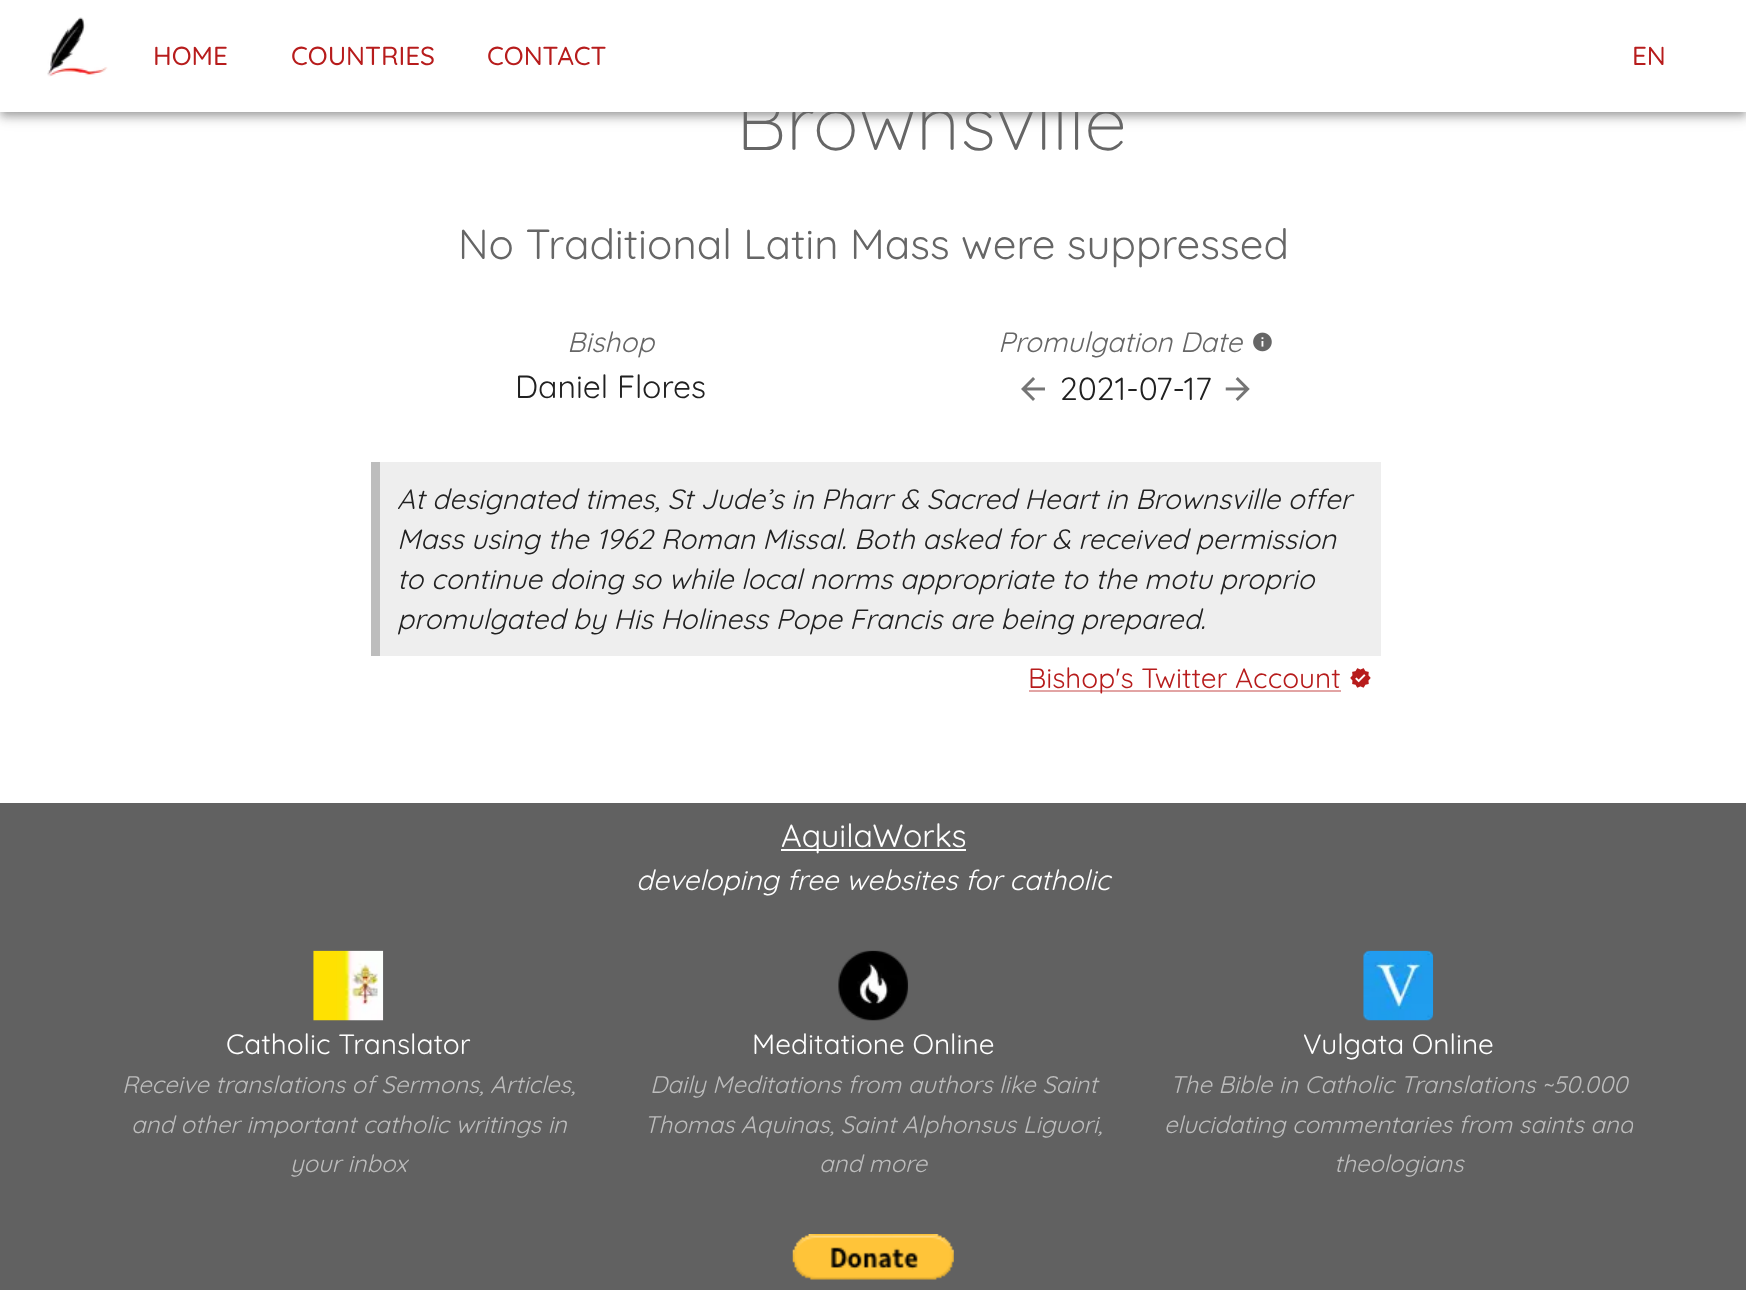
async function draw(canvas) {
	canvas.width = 1746;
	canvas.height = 1290;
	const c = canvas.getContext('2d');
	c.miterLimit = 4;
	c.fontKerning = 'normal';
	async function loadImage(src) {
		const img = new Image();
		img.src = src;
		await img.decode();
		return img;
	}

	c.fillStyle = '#fff';
	c.fillRect(0, 0, 1746, 1290);
	c.fillStyle = '#0000001f';
	c.filter = 'blur(9px)';
	c.beginPath();
	c.rect(0, 2, 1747, 112);
	c.fill();
	c.filter = 'none';
	c.fillStyle = '#00000024';
	c.filter = 'blur(4.5px)';
	c.beginPath();
	c.rect(0, 7, 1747, 112);
	c.fill();
	c.filter = 'none';
	c.fillStyle = '#00000033';
	c.filter = 'blur(3.5px)';
	c.beginPath();
	c.rect(2, 5, 1743, 109);
	c.fill();
	c.filter = 'none';
	c.font = '300 77px Quicksand';
	c.fillStyle = '#666';
	c.fillText('Brownsville', 736, 150);
	c.fillStyle = '#fff';
	c.fillRect(0, 0, 1746, 112);
	c.drawImage(await loadImage('img1.png'), 47, 17, 61, 60);
	c.font = '500 26px Quicksand';
	c.fillStyle = '#b71c1c';
	for (const [text, x, y] of [
		['HOME', 153, 65],
		['COUNTRIES', 291, 65],
		['CONTACT', 487, 65],
		['EN', 1632, 65],
	]) {
		c.fillText(text, x, y);
	}
	c.font = '42px Quicksand';
	c.fillStyle = '#666';
	c.fillText('No Traditional Latin Mass were suppressed', 458, 259);
	c.font = 'italic 28px Quicksand';
	c.fillText('Bishop', 567, 352);
	c.font = '32px Quicksand';
	c.fillStyle = '#212121';
	c.fillText('Daniel Flores', 515, 398);
	c.font = 'italic 28px Quicksand';
	c.fillStyle = '#666';
	c.fillText('Promulgation Date', 998, 352);
	c.drawImage(await loadImage('img2.png'), 1253, 332, 19, 20);
	c.drawImage(await loadImage('img3.png'), 1021, 377, 24, 24);
	c.font = '32px Quicksand';
	c.fillStyle = '#212121';
	c.fillText('2021-07-17', 1060, 400);
	c.drawImage(await loadImage('img4.png'), 1225, 377, 25, 24);
	c.fillStyle = '#eee';
	c.fillRect(380, 462, 1001, 194);
	c.fillStyle = '#bdbdbd';
	c.fillRect(371, 462, 9, 194);
	c.font = 'italic 28px Quicksand';
	c.fillStyle = '#212121';
	for (const [text, x, y] of [
		['At designated times, St Jude’s in Pharr & Sacred Heart in Brownsville offer', 397, 509],
		['Mass using the 1962 Roman Missal. Both asked for & received permission', 397, 549],
		['to continue doing so while local norms appropriate to the motu proprio', 397, 589],
		['promulgated by His Holiness Pope Francis are being prepared.', 397, 629],
	]) {
		c.fillText(text, x, y);
	}
	c.fillStyle = '#e2a4a4';
	c.fillRect(1029, 690, 312, 2);
	c.font = '28px Quicksand';
	c.fillStyle = '#b71c1c';
	c.fillText('Bishop\'s Twitter Account', 1028, 688);
	c.drawImage(await loadImage('img5.png'), 1350, 668, 21, 20);
	c.fillStyle = '#616161';
	c.fillRect(0, 803, 1746, 487);
	c.fillStyle = '#fff';
	c.fillRect(781, 849, 185, 2);
	c.font = '32px Quicksand';
	c.fillText('AquilaWorks', 781, 847);
	c.font = 'italic 28px Quicksand';
	c.fillText('developing free websites for catholic', 636, 890);
	c.drawImage(await loadImage('img6.png'), 313, 950, 71, 71);
	c.font = '28px Quicksand';
	c.fillText('Catholic Translator', 226, 1054);
	c.font = 'italic 24px Quicksand';
	c.fillStyle = '#bdbdbd';
	for (const [text, x, y] of [
		['Receive translations of Sermons, Articles,', 122, 1093],
		['and other important catholic writings in', 131, 1133],
		['your inbox', 290, 1172],
	]) {
		c.fillText(text, x, y);
	}
	c.drawImage(await loadImage('img7.png'), 838, 950, 71, 71);
	c.font = '28px Quicksand';
	c.fillStyle = '#fff';
	c.fillText('Meditatione Online', 752, 1054);
	c.font = 'italic 24px Quicksand';
	c.fillStyle = '#bdbdbd';
	for (const [text, x, y] of [
		['Daily Meditations from authors like Saint', 650, 1093],
		['Thomas Aquinas, Saint Alphonsus Liguori,', 644, 1133],
		['and more', 819, 1172],
	]) {
		c.fillText(text, x, y);
	}
	c.drawImage(await loadImage('img8.png'), 1363, 950, 71, 71);
	c.font = '28px Quicksand';
	c.fillStyle = '#fff';
	c.fillText('Vulgata Online', 1303, 1054);
	c.font = 'italic 24px Quicksand';
	c.fillStyle = '#bdbdbd';
	c.fillText('The Bible in Catholic Translations ~50.000', 1170, 1093);
	c.save();
	c.beginPath();
	c.roundRect(1164, 950, 469, 235, 7);
	c.clip();
	c.fillText('elucidating commentaries from saints and', 1164, 1133);
	c.restore();
	c.fillText('theologians', 1334, 1172);
	c.drawImage(await loadImage('img9.png'), 792, 1234, 162, 46);
}

draw(document.querySelector('canvas'));
